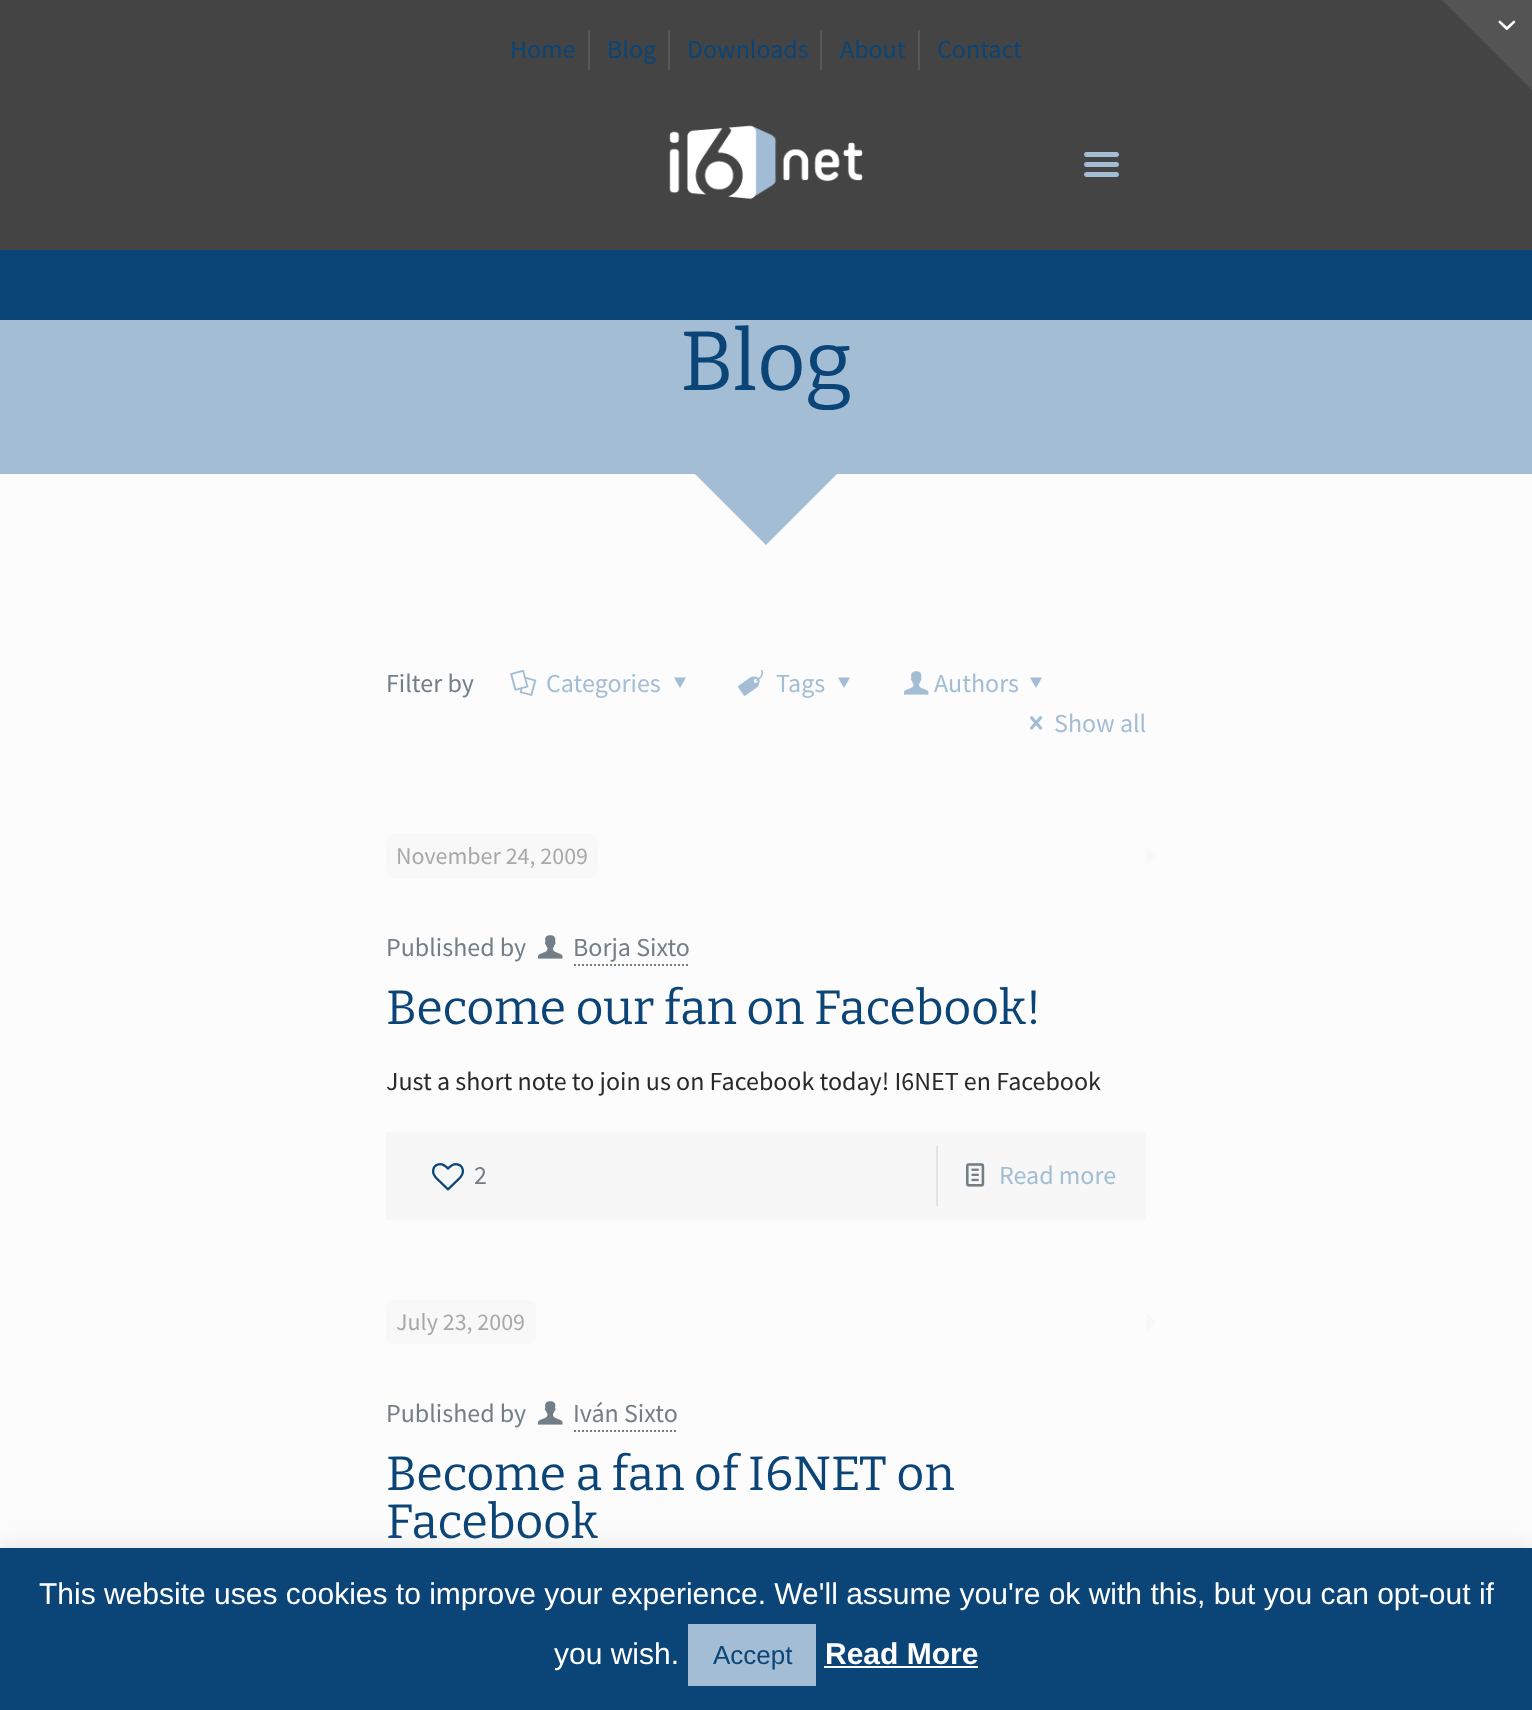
async function draw(canvas) {
	canvas.width = 1532;
	canvas.height = 1710;
	const c = canvas.getContext('2d');
	c.miterLimit = 4;
	c.fontKerning = 'normal';
	async function loadImage(src) {
		const img = new Image();
		img.src = src;
		await img.decode();
		return img;
	}

	c.fillStyle = '#fcfcfc';
	c.fillRect(0, 0, 1532, 1710);
	for (const [x, y, w, h, color] of [
		[0, 250, 1532, 70, '#0b4477'],
		[0, 0, 1512, 70, '#444'],
		[588, 30, 2, 40, '#575757'],
	]) {
		c.fillStyle = color;
		c.fillRect(x, y, w, h);
	}
	c.font = '26px Source Sans Pro';
	c.fillStyle = '#0b4477';
	c.fillText('Home', 510, 58);
	c.fillStyle = '#575757';
	c.fillRect(668, 30, 2, 40);
	c.fillStyle = '#0b4477';
	c.fillText('Blog', 607, 58);
	c.fillStyle = '#575757';
	c.fillRect(820, 30, 2, 40);
	c.fillStyle = '#0b4477';
	c.fillText('Downloads', 687, 58);
	c.fillStyle = '#575757';
	c.fillRect(918, 30, 2, 40);
	c.fillStyle = '#0b4477';
	c.fillText('About', 840, 58);
	c.fillText('Contact', 937, 58);
	c.fillStyle = '#444';
	c.fillRect(0, 70, 1532, 180);
	c.drawImage(await loadImage('img1.png'), 669, 125, 194, 74);
	c.drawImage(await loadImage('img2.png'), 1084, 152, 35, 25);
	c.fillStyle = '#a3bdd5';
	c.fillRect(0, 320, 1532, 154);
	c.font = '100 84px Bitter';
	c.fillStyle = '#0b4477';
	c.fillText('Blog', 680, 390);
	c.fillStyle = '#a3bdd5';
	c.beginPath();
	c.moveTo(766, 403);
	c.lineTo(837, 474);
	c.lineTo(766, 545);
	c.lineTo(695, 474);
	c.closePath();
	c.fill();
	c.font = '26px Source Sans Pro';
	c.fillStyle = '#737e86';
	c.fillText('Filter by', 386, 692);
	c.drawImage(await loadImage('img3.png'), 510, 670, 27, 26);
	c.fillStyle = '#a3bdd5';
	c.fillText('Categories', 546, 692);
	c.beginPath();
	c.moveTo(686, 677.5);
	c.lineTo(680, 688);
	c.lineTo(674, 677.5);
	c.closePath();
	c.fill();
	c.drawImage(await loadImage('img4.png'), 738, 670, 25, 26);
	c.fillText('Tags', 776, 692);
	c.beginPath();
	c.moveTo(850, 677.5);
	c.lineTo(844, 688);
	c.lineTo(838, 677.5);
	c.closePath();
	c.fill();
	c.drawImage(await loadImage('img5.png'), 904, 671, 25, 24);
	c.fillText('Authors', 934, 692);
	c.beginPath();
	c.moveTo(1042, 677.5);
	c.lineTo(1036, 688);
	c.lineTo(1030, 677.5);
	c.closePath();
	c.fill();
	c.drawImage(await loadImage('img6.png'), 1030, 716, 13, 14);
	c.fillText('Show all', 1054, 732);
	c.fillStyle = '#f8f8f8';
	c.beginPath();
	c.roundRect(386, 834, 212, 44, 8);
	c.fill();
	c.font = '24px Source Sans Pro';
	c.fillStyle = '#a8a8a8';
	c.fillText('November 24, 2009', 396, 864);
	c.fillStyle = '#f8f8f8';
	c.beginPath();
	c.moveTo(1146, 866);
	c.lineTo(1146, 846);
	c.lineTo(1156, 856);
	c.closePath();
	c.fill();
	c.font = '26px Source Sans Pro';
	c.fillStyle = '#737e86';
	c.fillText('Published by', 386, 956);
	c.drawImage(await loadImage('img7.png'), 538, 935, 25, 24);
	c.fillText('Borja Sixto', 573, 956);
	c.beginPath();
	c.moveTo(574, 965);
	c.lineTo(690, 965);
	c.strokeStyle = '#737e86';
	c.lineWidth = 2;
	c.setLineDash([2, 2]);
	c.stroke();
	c.font = '100 48px Bitter';
	c.fillStyle = '#0b4477';
	c.fillText('Become our fan on Facebook!', 386, 1024);
	c.font = '26px Source Sans Pro';
	c.fillStyle = '#292929';
	c.fillText('Just a short note to join us on Facebook today! I6NET en Facebook', 386, 1090);
	c.fillStyle = '#f7f7f7';
	c.fillRect(386, 1132, 760, 88);
	c.drawImage(await loadImage('img8.png'), 432, 1163, 32, 28);
	c.fillStyle = '#737e86';
	c.fillText('2', 474, 1184);
	c.fillStyle = '#e3e3e3';
	c.fillRect(936, 1146, 2, 60);
	c.drawImage(await loadImage('img9.png'), 966, 1163, 19, 24);
	c.fillStyle = '#a3bdd5';
	c.fillText('Read more', 999, 1184);
	c.fillStyle = '#f8f8f8';
	c.beginPath();
	c.roundRect(386, 1300, 150, 44, 8);
	c.fill();
	c.font = '24px Source Sans Pro';
	c.fillStyle = '#a8a8a8';
	c.fillText('July 23, 2009', 396, 1330);
	c.fillStyle = '#f8f8f8';
	c.beginPath();
	c.moveTo(1146, 1332);
	c.lineTo(1146, 1312);
	c.lineTo(1156, 1322);
	c.closePath();
	c.fill();
	c.font = '26px Source Sans Pro';
	c.fillStyle = '#737e86';
	c.fillText('Published by', 386, 1422);
	c.drawImage(await loadImage('img7.png'), 538, 1401, 25, 24);
	c.fillText('Iván Sixto', 573, 1422);
	c.beginPath();
	c.moveTo(574, 1431);
	c.lineTo(678, 1431);
	c.stroke();
	c.font = '100 48px Bitter';
	c.fillStyle = '#0b4477';
	c.fillText('Become a fan of I6NET on', 386, 1490);
	c.fillText('Facebook', 386, 1538);
	c.fillStyle = '#545454';
	c.beginPath();
	c.moveTo(1532, 0);
	c.lineTo(1532, 90);
	c.lineTo(1442, 0);
	c.closePath();
	c.fill();
	c.drawImage(await loadImage('img10.png'), 1498, 20, 18, 11);
	c.fillStyle = '#acabab4d';
	c.filter = 'blur(10px)';
	c.beginPath();
	c.rect(0, 1546, 1532, 162);
	c.fill();
	c.filter = 'none';
	c.fillStyle = '#0b4477';
	c.fillRect(0, 1548, 1532, 162);
	c.font = '30px Liberation Sans';
	c.fillStyle = '#fff';
	c.fillText('This website uses cookies to improve your experience. We\'ll assume you\'re ok with this, but you can opt-out if', 39, 1604);
	c.fillText('you wish.', 554, 1664);
	c.fillStyle = '#a3bdd5';
	c.fillRect(688, 1624, 128, 62);
	c.font = '26px Liberation Sans';
	c.fillStyle = '#0b4477';
	c.fillText('Accept', 713, 1664);
	c.font = 'bold 30px Liberation Sans';
	c.fillStyle = '#fff';
	c.fillText('Read More', 825, 1664);
	c.fillRect(824, 1666, 154, 2);
}

draw(document.querySelector('canvas'));
